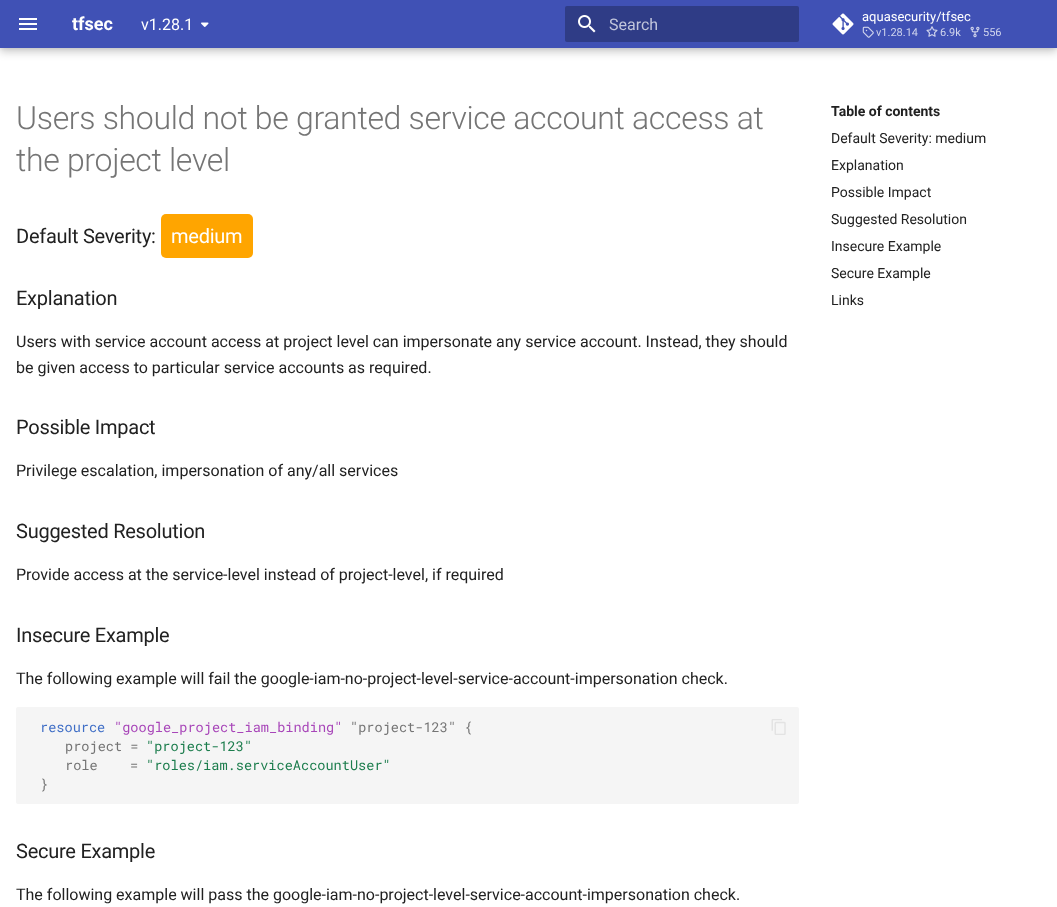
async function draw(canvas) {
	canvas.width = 1057;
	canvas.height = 907;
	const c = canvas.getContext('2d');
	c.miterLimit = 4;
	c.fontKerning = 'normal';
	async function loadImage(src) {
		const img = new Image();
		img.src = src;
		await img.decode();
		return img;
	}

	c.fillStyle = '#fff';
	c.fillRect(0, 0, 1057, 907);
	c.fillStyle = '#00000033';
	c.filter = 'blur(4px)';
	c.beginPath();
	c.rect(0, 4, 1057, 48);
	c.fill();
	c.filter = 'none';
	c.fillStyle = '#0000001a';
	c.filter = 'blur(2px)';
	c.beginPath();
	c.rect(0, 0, 1057, 48);
	c.fill();
	c.filter = 'none';
	c.fillStyle = '#4051b5';
	c.fillRect(0, 0, 1057, 48);
	c.drawImage(await loadImage('img1.png'), 19, 18, 18, 12);
	c.font = 'bold 18px Roboto';
	c.fillStyle = '#fff';
	c.fillText('tfsec', 72, 30);
	c.font = '16px Roboto';
	c.fillText('v1.28.1', 141, 30);
	c.drawImage(await loadImage('img2.png'), 201, 22, 8, 5);
	c.fillStyle = '#2f3c86';
	c.beginPath();
	c.roundRect(565, 6, 234, 36, 2);
	c.fill();
	c.drawImage(await loadImage('img3.png'), 578, 15, 18, 18);
	c.fillStyle = '#c1c5db';
	c.fillText('Search', 609, 30);
	c.drawImage(await loadImage('img4.png'), 832, 13, 22, 22);
	c.font = '13px Roboto';
	c.fillStyle = '#fff';
	c.fillText('aquasecurity/tfsec', 862, 21);
	c.drawImage(await loadImage('img5.png'), 862, 26, 12, 12);
	c.font = '11px Roboto';
	c.fillStyle = '#cfd4ed';
	c.fillText('v1.28.14', 876, 36);
	c.drawImage(await loadImage('img6.png'), 926, 26, 12, 11);
	c.fillText('6.9k', 940, 36);
	c.drawImage(await loadImage('img7.png'), 970, 26, 10, 12);
	c.fillText('556', 983, 36);
	c.letterSpacing = '-0.32px';
	c.font = '300 32px Roboto';
	c.fillStyle = '#757575';
	c.fillText('Users should not be granted service account access at', 16, 129);
	c.fillText('the project level', 16, 171);
	c.letterSpacing = '-0.25px';
	c.font = '20px Roboto';
	c.fillStyle = '#212121';
	c.fillText('Default Severity:', 16, 243);
	c.fillStyle = '#ffa500';
	c.beginPath();
	c.roundRect(161, 214, 92, 44, 5);
	c.fill();
	c.fillStyle = '#fff';
	c.fillText('medium', 171, 243);
	c.fillStyle = '#212121';
	c.fillText('Explanation', 16, 305);
	c.letterSpacing = '0px';
	c.font = '16px Roboto';
	c.fillText('Users with service account access at project level can impersonate any service account. Instead, they should', 16, 347);
	c.fillText('be given access to particular service accounts as required.', 16, 373);
	c.letterSpacing = '-0.25px';
	c.font = '20px Roboto';
	c.fillText('Possible Impact', 16, 434);
	c.letterSpacing = '0px';
	c.font = '16px Roboto';
	c.fillText('Privilege escalation, impersonation of any/all services', 16, 476);
	c.letterSpacing = '-0.25px';
	c.font = '20px Roboto';
	c.fillText('Suggested Resolution', 16, 538);
	c.letterSpacing = '0px';
	c.font = '16px Roboto';
	c.fillText('Provide access at the service-level instead of project-level, if required', 16, 580);
	c.letterSpacing = '-0.25px';
	c.font = '20px Roboto';
	c.fillText('Insecure Example', 16, 642);
	c.letterSpacing = '0px';
	c.font = '16px Roboto';
	c.fillText('The following example will fail the google-iam-no-project-level-service-account-impersonation check.', 16, 684);
	c.fillStyle = '#f5f5f5';
	c.beginPath();
	c.roundRect(16, 707, 783, 97, 2);
	c.fill();
	c.font = '13.6px Roboto Mono';
	c.fillStyle = '#3f6ec6';
	c.fillText('resource', 40, 732);
	c.fillStyle = '#a846b9';
	c.fillText('"google_project_iam_binding"', 114, 732);
	c.fillStyle = '#757575';
	c.fillText('"project-123" {', 350, 732);
	c.fillText('project =', 65, 751);
	c.fillStyle = '#1c7d4d';
	c.fillText('"project-123"', 146, 751);
	c.fillStyle = '#757575';
	c.fillText('role', 65, 770);
	c.fillText('=', 130, 770);
	c.fillStyle = '#1c7d4d';
	c.fillText('"roles/iam.serviceAccountUser"', 146, 770);
	c.fillStyle = '#757575';
	c.fillText('}', 40, 789);
	c.drawImage(await loadImage('img8.png'), 771, 719, 15, 16);
	c.letterSpacing = '-0.25px';
	c.font = '20px Roboto';
	c.fillStyle = '#212121';
	c.fillText('Secure Example', 16, 858);
	c.letterSpacing = '0px';
	c.font = '16px Roboto';
	c.fillText('The following example will pass the google-iam-no-project-level-service-account-impersonation check.', 16, 900);
	c.save();
	c.beginPath();
	c.rect(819, 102, 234, 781);
	c.clip();
	c.beginPath();
	c.rect(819, 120, 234, 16);
	c.clip();
	c.fillStyle = '#fff';
	c.filter = 'blur(4px)';
	c.beginPath();
	c.rect(811, 94, 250, 34);
	c.fill();
	c.filter = 'none';
	c.restore();
	c.font = 'bold 14px Roboto';
	c.fillText('Table of contents', 831, 116);
	c.font = '14px Roboto';
	for (const [text, x, y] of [
		['Default Severity: medium', 831, 143],
		['Explanation', 831, 170],
		['Possible Impact', 831, 197],
		['Suggested Resolution', 831, 224],
		['Insecure Example', 831, 251],
		['Secure Example', 831, 278],
		['Links', 831, 305],
	]) {
		c.fillText(text, x, y);
	}
}

draw(document.querySelector('canvas'));
